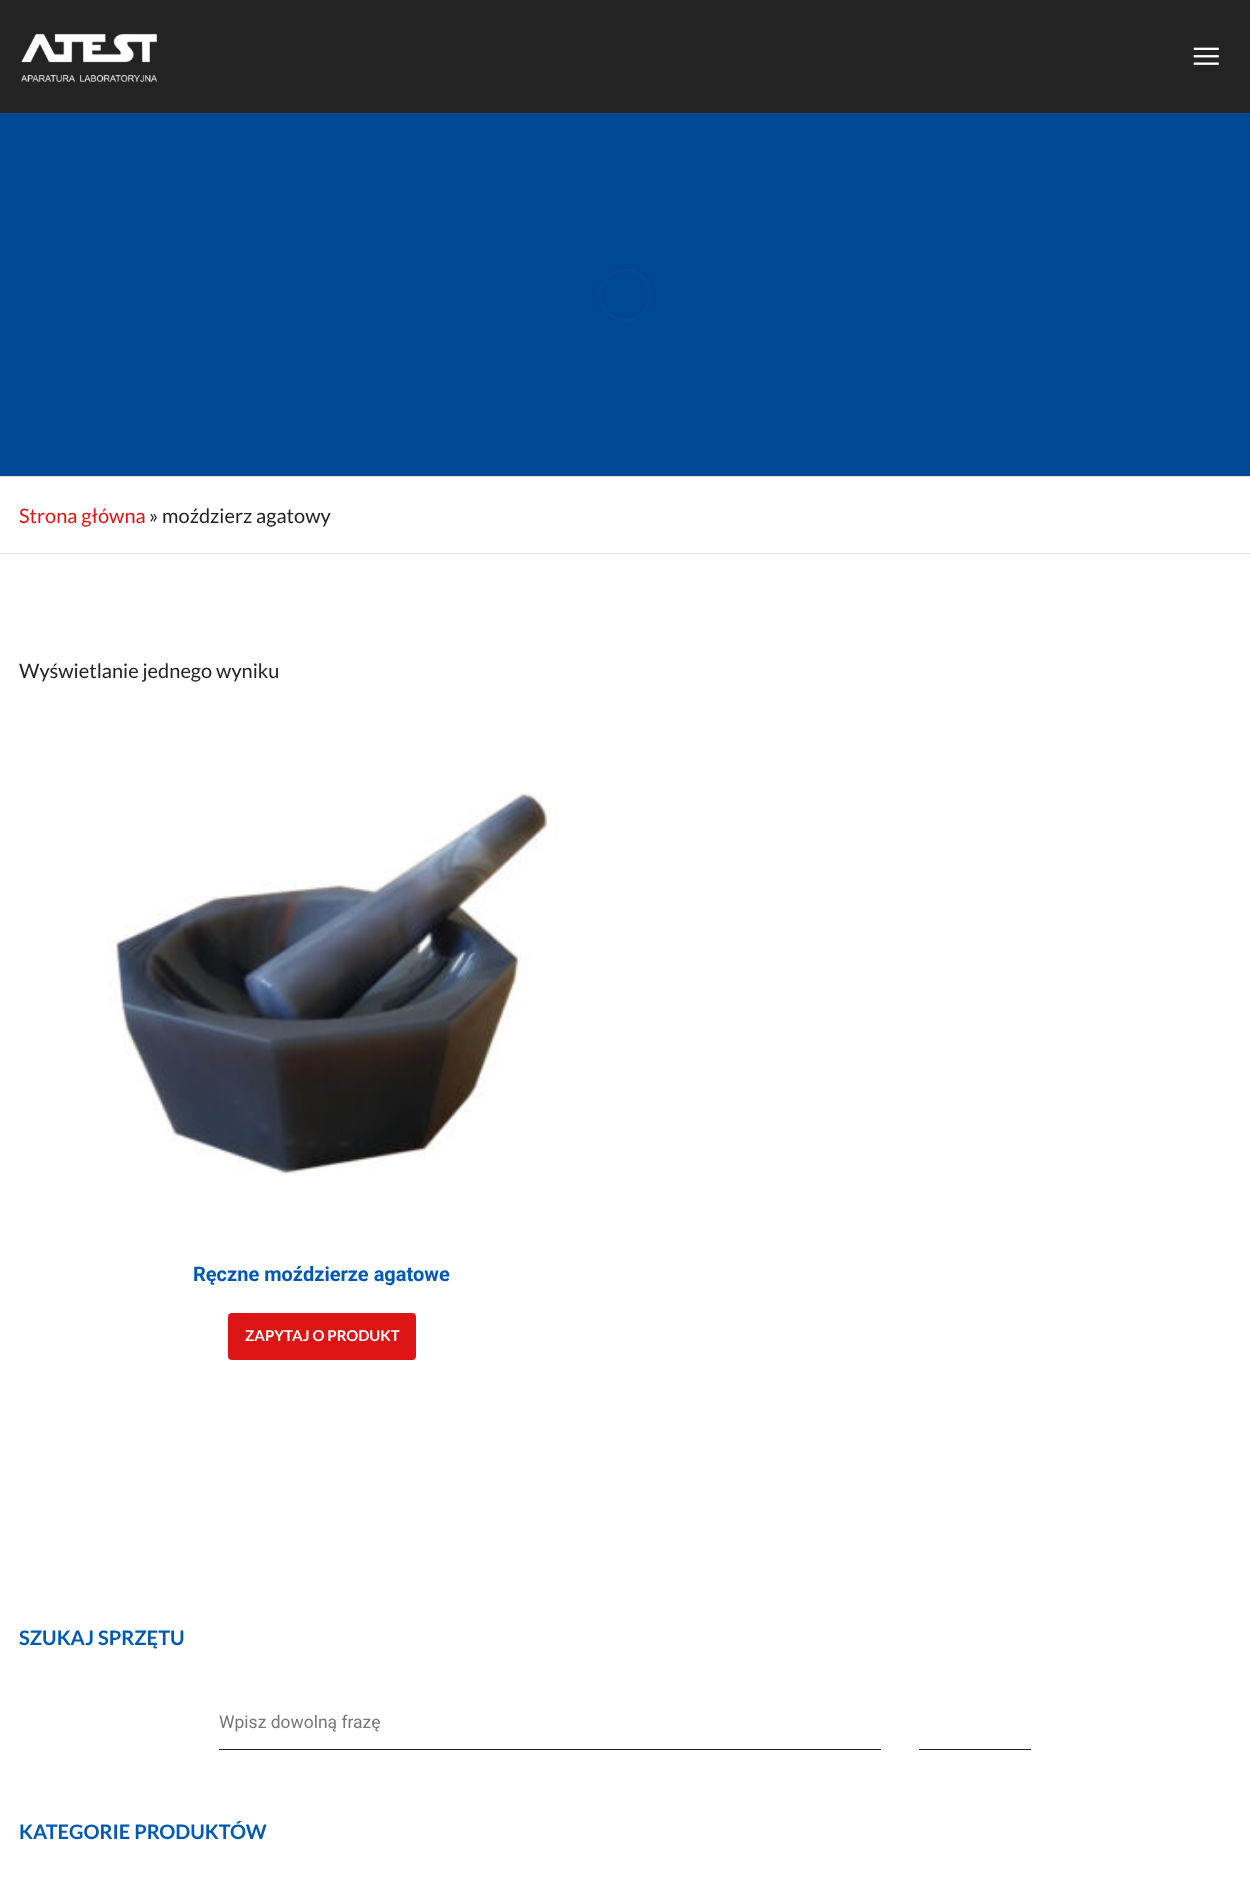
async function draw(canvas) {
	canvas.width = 1250;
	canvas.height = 1883;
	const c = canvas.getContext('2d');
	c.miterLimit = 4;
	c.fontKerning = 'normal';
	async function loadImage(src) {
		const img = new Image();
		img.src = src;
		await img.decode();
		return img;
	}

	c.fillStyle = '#fff';
	c.fillRect(0, 0, 1250, 1883);
	c.fillStyle = '#232323';
	c.fillRect(0, 0, 1250, 113);
	c.drawImage(await loadImage('img1.png'), 21, 33, 137, 50);
	c.drawImage(await loadImage('img2.png'), 1193, 47, 26, 18);
	c.fillStyle = '#004894';
	c.fillRect(0, 113, 1250, 363);
	c.beginPath();
	c.moveTo(607.5, 277.5);
	c.bezierCurveTo(612, 272.5, 618.5, 270, 625, 270);
	c.bezierCurveTo(655, 270, 659, 313.5, 630, 319.5);
	c.bezierCurveTo(622, 321, 613, 318.5, 607.5, 312.5);
	c.strokeStyle = '#064a93';
	c.lineWidth = 2.5;
	c.stroke();
	c.beginPath();
	c.moveTo(607.5, 312.5);
	c.bezierCurveTo(597.5, 303, 597.5, 287, 607.5, 277.5);
	c.strokeStyle = '#004a99';
	c.stroke();
	c.fillStyle = '#e0e0e0';
	c.fillRect(0, 476, 1250, 1);
	c.fillRect(0, 553, 1250, 1);
	c.font = '20px Lato';
	c.fillStyle = '#dc1414';
	c.fillText('Strona główna', 19, 523);
	c.fillStyle = '#232323';
	c.fillText('» moździerz agatowy', 149, 523);
	c.fillText('Wyświetlanie jednego wyniku', 19, 678);
	c.drawImage(await loadImage('img3.png'), 108, 793, 449, 383);
	c.font = 'bold 20px Roboto';
	c.fillStyle = '#0058b5';
	c.fillText('Ręczne moździerze agatowe', 193, 1281);
	c.fillStyle = '#dc1414';
	c.beginPath();
	c.roundRect(228, 1313, 188, 47, 4);
	c.fill();
	c.font = 'bold 15px Lato';
	c.fillStyle = '#fff';
	c.fillText('ZAPYTAJ O PRODUKT', 245, 1341);
	c.font = 'bold 20px Lato';
	c.fillStyle = '#0058b5';
	c.fillText('SZUKAJ SPRZĘTU', 19, 1645);
	c.fillStyle = '#232323';
	c.fillRect(219, 1749, 812, 1);
	c.font = '17.5px Roboto';
	c.fillStyle = '#777';
	c.fillText('Wpisz dowolną frazę', 219, 1728);
	c.fillStyle = '#fff';
	c.fillRect(881, 1749, 38, 1);
	c.font = 'bold 20px Lato';
	c.fillStyle = '#0058b5';
	c.fillText('KATEGORIE PRODUKTÓW', 19, 1839);
}

draw(document.querySelector('canvas'));
